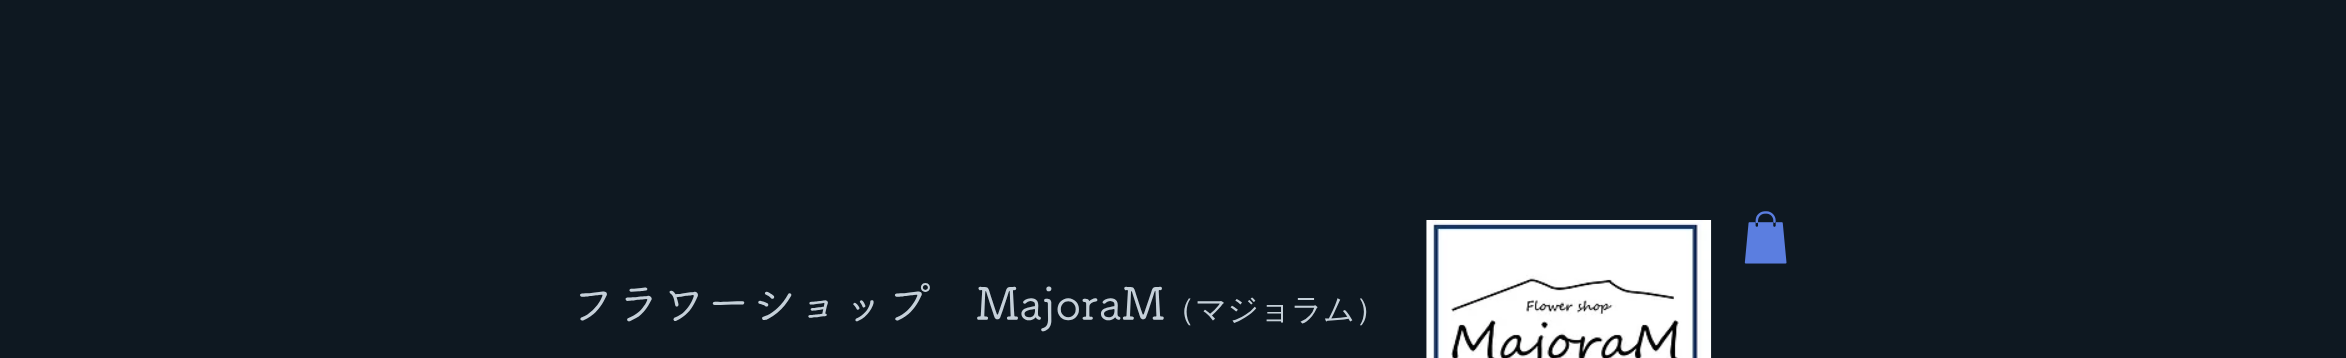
async function draw(canvas) {
	canvas.width = 2346;
	canvas.height = 358;
	const c = canvas.getContext('2d');
	c.miterLimit = 4;
	c.fontKerning = 'normal';
	async function loadImage(src) {
		const img = new Image();
		img.src = src;
		await img.decode();
		return img;
	}

	c.fillStyle = '#0e1821';
	c.fillRect(0, 0, 2346, 358);
	c.font = '500 45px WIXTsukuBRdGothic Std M';
	c.fillStyle = '#c5d0d9';
	c.fillText('フラワーショップ', 571, 320);
	c.fillText('MajoraM', 976, 320);
	c.font = '500 31.25px WenQuanYi Zen Hei';
	c.fillText('（マジョラム）', 1164, 320);
	c.drawImage(await loadImage('img1.png'), 1426, 220, 286, 138);
	c.drawImage(await loadImage('img2.png'), 1744, 211, 43, 53);
}

draw(document.querySelector('canvas'));
